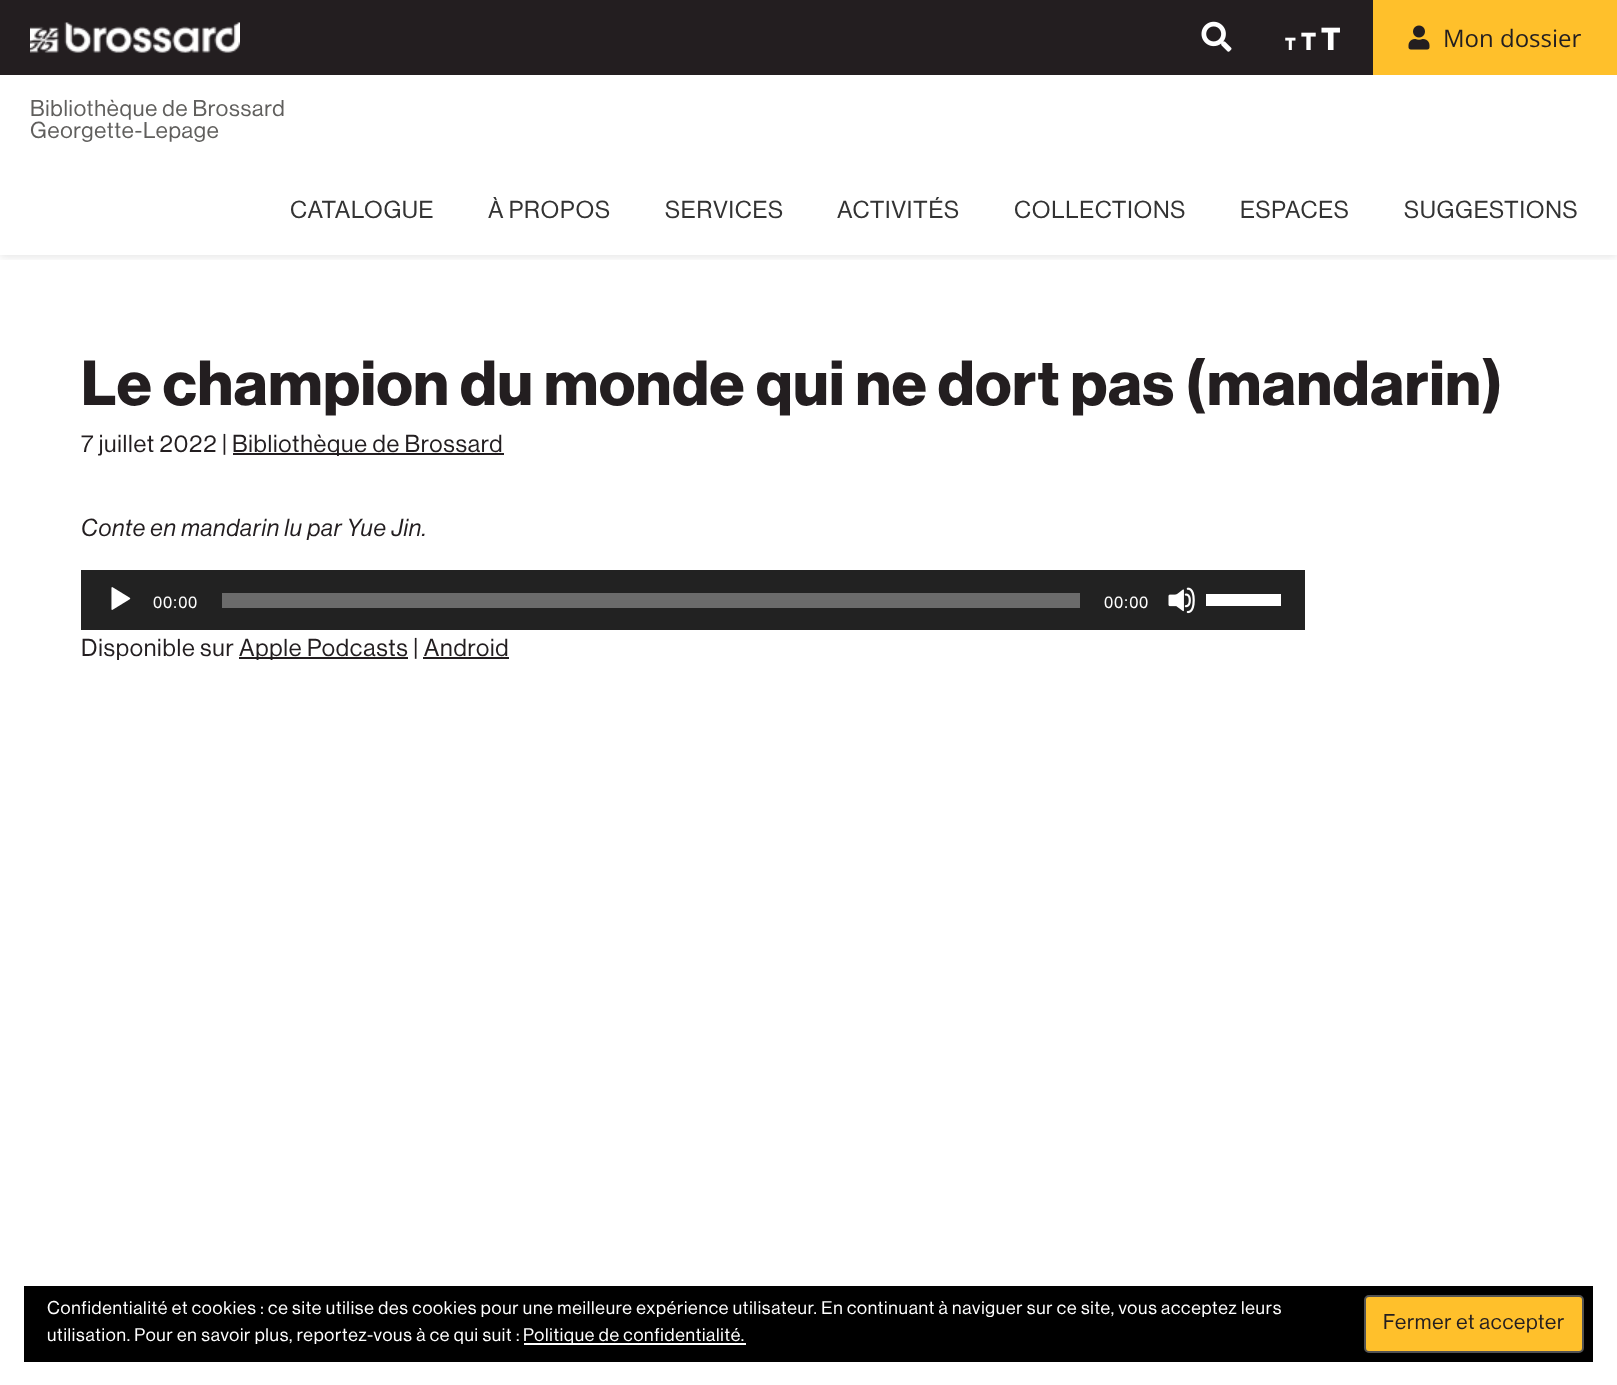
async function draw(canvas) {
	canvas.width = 1617;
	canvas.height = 1385;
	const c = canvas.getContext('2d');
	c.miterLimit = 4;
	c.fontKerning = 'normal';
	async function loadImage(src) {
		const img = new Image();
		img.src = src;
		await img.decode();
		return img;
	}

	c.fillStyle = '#fff';
	c.fillRect(0, 0, 1617, 1385);
	c.save();
	c.beginPath();
	c.rect(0, 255, 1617, 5);
	c.clip();
	c.fillStyle = '#0000001a';
	c.filter = 'blur(4px)';
	c.beginPath();
	c.rect(0, 2, 1617, 255);
	c.fill();
	c.filter = 'none';
	c.restore();
	c.fillStyle = '#231e20';
	c.fillRect(0, 0, 1373, 75);
	c.drawImage(await loadImage('img1.png'), 30, 22, 210, 31);
	c.drawImage(await loadImage('img2.png'), 1201, 21, 31, 31);
	c.letterSpacing = '0.75px';
	c.font = 'bold 17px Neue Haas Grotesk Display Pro';
	c.fillStyle = '#fff';
	c.fillText('T', 1285, 50);
	c.font = 'bold 24px Neue Haas Grotesk Display Pro';
	c.fillText('T', 1301, 50);
	c.font = 'bold 31px Neue Haas Grotesk Display Pro';
	c.fillText('T', 1321, 50);
	c.fillStyle = '#ffc02b';
	c.fillRect(1373, 0, 244, 75);
	c.drawImage(await loadImage('img3.png'), 1408, 25, 22, 25);
	c.letterSpacing = '0px';
	c.font = '24px Open Sans';
	c.fillStyle = '#231e20';
	c.fillText('Mon dossier', 1443, 47);
	c.letterSpacing = '0.75px';
	c.font = '22.5px Neue Haas Grotesk Display Pro';
	c.fillStyle = '#605f5d';
	c.fillText('Bibliothèque de Brossard', 30, 116);
	c.fillText('Georgette-Lepage', 30, 138);
	c.font = '24px Neue Haas Grotesk Display Pro';
	c.fillStyle = '#333';
	for (const [text, x, y] of [
		['CATALOGUE', 290, 218],
		['À PROPOS', 488, 218],
		['SERVICES', 665, 218],
		['ACTIVITÉS', 837, 218],
		['COLLECTIONS', 1014, 218],
		['ESPACES', 1240, 218],
		['SUGGESTIONS', 1404, 218],
	]) {
		c.fillText(text, x, y);
	}
	c.font = 'bold 62.4px Neue Haas Grotesk Display Pro';
	c.fillStyle = '#231e20';
	c.fillText('Le champion du monde qui ne dort pas (mandarin)', 81, 405);
	c.font = '24px Neue Haas Grotesk Display Pro';
	c.fillText('7 juillet 2022 |', 81, 452);
	c.fillRect(233, 453, 271, 2);
	c.fillText('Bibliothèque de Brossard', 232, 452);
	c.font = 'italic 24px Neue Haas Grotesk Display Pro';
	c.fillText('Conte en mandarin lu par Yue Jin.', 81, 536);
	c.fillStyle = '#222';
	c.fillRect(81, 570, 1224, 60);
	c.drawImage(await loadImage('img4.png'), 111, 587, 20, 23);
	c.font = '16.5px Liberation Sans';
	c.fillStyle = '#fff';
	c.fillText('00:00', 153, 608);
	c.fillStyle = '#6b6b6b';
	c.fillRect(222, 593, 858, 15);
	c.fillStyle = '#fff';
	c.fillText('00:00', 1104, 608);
	c.drawImage(await loadImage('img5.png'), 1168, 587, 27, 27);
	c.fillRect(1206, 594, 75, 12);
	c.font = '24px Neue Haas Grotesk Display Pro';
	c.fillStyle = '#231e20';
	c.fillText('Disponible sur', 81, 656);
	c.fillRect(239, 657, 169, 2);
	c.fillText('Apple Podcasts | Android', 239, 656);
	c.fillRect(423, 657, 86, 2);
	c.fillStyle = '#000';
	c.fillRect(24, 1286, 1569, 76);
	c.font = '18px Neue Haas Grotesk Display Pro';
	c.fillStyle = '#fff';
	c.fillText('Confidentialité et cookies : ce site utilise des cookies pour une meilleure expérience utilisateur. En continuant à naviguer sur ce site, vous acceptez leurs', 47, 1314);
	c.fillStyle = '#ffc02b';
	c.beginPath();
	c.roundRect(1365, 1296, 218, 56, 4);
	c.fill();
	c.strokeStyle = '#535353';
	c.lineWidth = 2;
	c.stroke();
	c.font = '21px Neue Haas Grotesk Display Pro';
	c.fillStyle = '#231e20';
	c.fillText('Fermer et accepter', 1383, 1329);
	c.font = '18px Neue Haas Grotesk Display Pro';
	c.fillStyle = '#fff';
	c.fillText('utilisation. Pour en savoir plus, reportez-vous à ce qui suit :', 47, 1341);
	c.fillRect(524, 1343, 222, 2);
	c.fillText('Politique de confidentialité.', 523, 1341);
}

draw(document.querySelector('canvas'));
